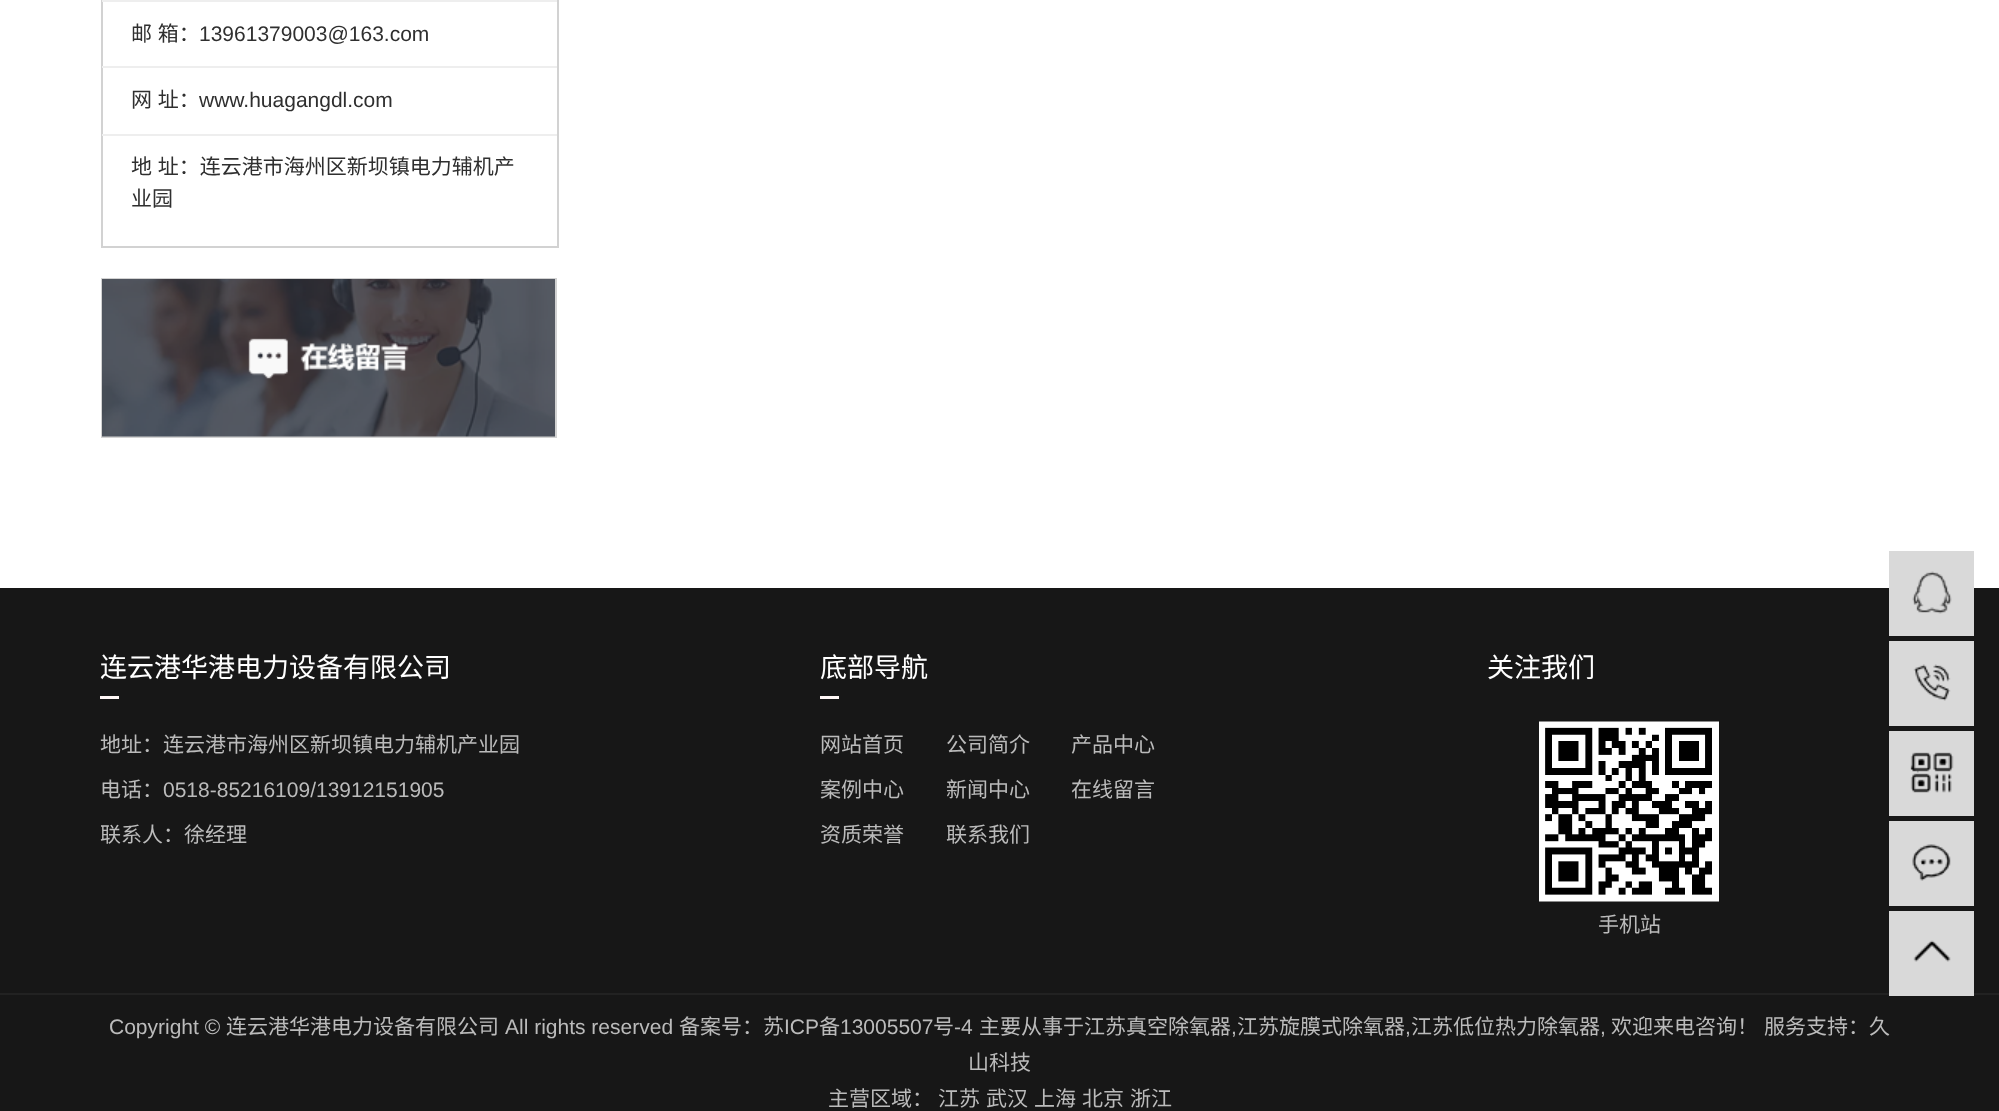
async function draw(canvas) {
	canvas.width = 1999;
	canvas.height = 1111;
	const c = canvas.getContext('2d');
	c.miterLimit = 4;
	c.fontKerning = 'normal';
	async function loadImage(src) {
		const img = new Image();
		img.src = src;
		await img.decode();
		return img;
	}

	c.fillStyle = '#fff';
	c.fillRect(0, 0, 1999, 1111);
	for (const [x, y, w, h, color] of [
		[557, 0, 2, 248, '#d2d2d2'],
		[101, 246, 457, 2, '#d2d2d2'],
		[101, 0, 2, 248, '#d2d2d2'],
		[102, 0, 455, 2, '#eee'],
	]) {
		c.fillStyle = color;
		c.fillRect(x, y, w, h);
	}
	c.wordSpacing = '1px';
	c.font = '21px Noto Sans CJK SC';
	c.fillStyle = '#2f2f2f';
	c.fillText('邮 箱：', 131, 41);
	c.wordSpacing = '0px';
	c.font = '21px Liberation Sans';
	c.fillText('13961379003@163.com', 199, 41);
	c.fillStyle = '#eee';
	c.fillRect(102, 66, 455, 2);
	c.wordSpacing = '1px';
	c.font = '21px Noto Sans CJK SC';
	c.fillStyle = '#2f2f2f';
	c.fillText('网 址：', 131, 107);
	c.wordSpacing = '0px';
	c.font = '21px Liberation Sans';
	c.fillText('www.huagangdl.com', 199, 107);
	c.fillStyle = '#eee';
	c.fillRect(102, 134, 455, 2);
	c.wordSpacing = '1px';
	c.font = '21px Noto Sans CJK SC';
	c.fillStyle = '#2f2f2f';
	c.fillText('地 址：连云港市海州区新坝镇电力辅机产', 131, 174);
	c.wordSpacing = '0px';
	c.fillText('业园', 131, 206);
	c.strokeStyle = '#d2d2d2';
	c.lineWidth = 2;
	c.strokeRect(102, 279, 454, 158);
	c.drawImage(await loadImage('img1.png'), 102, 279, 453, 158);
	c.fillStyle = '#171717';
	c.fillRect(0, 588, 1999, 405);
	c.fillStyle = '#fff8f7';
	c.fillRect(100, 696, 19, 3);
	c.font = '27px Noto Sans CJK SC';
	c.fillStyle = '#fff';
	c.fillText('连云港华港电力设备有限公司', 100, 677);
	c.font = '21px Noto Sans CJK SC';
	c.fillStyle = '#bbb';
	c.fillText('地址：连云港市海州区新坝镇电力辅机产业园', 100, 752);
	c.fillText('电话：', 100, 797);
	c.font = '21px Liberation Sans';
	c.fillText('0518-85216109/13912151905', 163, 797);
	c.font = '21px Noto Sans CJK SC';
	c.fillText('联系人：徐经理', 100, 842);
	c.fillStyle = '#fff8f7';
	c.fillRect(820, 696, 19, 3);
	c.font = '27px Noto Sans CJK SC';
	c.fillStyle = '#fff';
	c.fillText('底部导航', 820, 677);
	c.font = '21px Noto Sans CJK SC';
	c.fillStyle = '#bbb';
	for (const [text, x, y] of [
		['网站首页', 820, 752],
		['公司简介', 946, 752],
		['产品中心', 1071, 752],
		['案例中心', 820, 797],
		['新闻中心', 946, 797],
		['在线留言', 1071, 797],
		['资质荣誉', 820, 842],
		['联系我们', 946, 842],
	]) {
		c.fillText(text, x, y);
	}
	c.font = '27px Noto Sans CJK SC';
	c.fillStyle = '#fff';
	c.fillText('关注我们', 1487, 677);
	c.drawImage(await loadImage('img2.png'), 1539, 721, 180, 181);
	c.font = '21px Noto Sans CJK SC';
	c.fillStyle = '#bbb';
	c.fillText('手机站', 1598, 932);
	c.fillStyle = '#d9d9d9';
	c.fillRect(1889, 551, 85, 85);
	c.drawImage(await loadImage('img3.png'), 1912, 571, 40, 43);
	c.fillRect(1889, 641, 85, 85);
	c.drawImage(await loadImage('img4.png'), 1913, 664, 38, 37);
	c.fillRect(1889, 731, 85, 85);
	c.drawImage(await loadImage('img5.png'), 1910, 752, 44, 41);
	c.fillRect(1889, 821, 85, 85);
	c.drawImage(await loadImage('img6.png'), 1912, 844, 39, 37);
	for (const [x, y, w, h, color] of [
		[0, 995, 1999, 116, '#171717'],
		[0, 993, 1999, 2, '#222'],
		[1889, 911, 85, 85, '#d9d9d9'],
	]) {
		c.fillStyle = color;
		c.fillRect(x, y, w, h);
	}
	c.drawImage(await loadImage('img7.png'), 1913, 940, 38, 22);
	c.font = '21px Liberation Sans';
	c.fillStyle = '#bbb';
	c.fillText('Copyright ©', 109, 1034);
	c.font = '21px Noto Sans CJK SC';
	c.fillText('连云港华港电力设备有限公司', 226, 1034);
	c.font = '21px Liberation Sans';
	c.fillText('All rights reserved', 505, 1034);
	c.font = '21px Noto Sans CJK SC';
	c.fillText('备案号：苏', 679, 1034);
	c.font = '21px Liberation Sans';
	c.fillText('ICP', 784, 1034);
	c.font = '21px Noto Sans CJK SC';
	c.fillText('备', 819, 1034);
	c.font = '21px Liberation Sans';
	c.fillText('13005507', 840, 1034);
	c.font = '21px Noto Sans CJK SC';
	c.fillText('号', 933, 1034);
	c.font = '21px Liberation Sans';
	c.fillText('-4', 954, 1034);
	c.font = '21px Noto Sans CJK SC';
	c.fillText('主要从事于江苏真空除氧器', 979, 1034);
	c.font = '21px Liberation Sans';
	c.fillText(',', 1231, 1034);
	c.font = '21px Noto Sans CJK SC';
	c.fillText('江苏旋膜式除氧器', 1237, 1034);
	c.font = '21px Liberation Sans';
	c.fillText(',', 1405, 1034);
	c.font = '21px Noto Sans CJK SC';
	c.fillText('江苏低位热力除氧器', 1411, 1034);
	c.font = '21px Liberation Sans';
	c.fillText(',', 1600, 1034);
	c.font = '21px Noto Sans CJK SC';
	for (const [text, x, y] of [
		['欢迎来电咨询！', 1611, 1034],
		['服务支持：久', 1764, 1034],
		['山科技', 968, 1070],
		['主营区域：', 828, 1106],
		['江苏', 938, 1106],
		['武汉', 986, 1106],
		['上海', 1034, 1106],
		['北京', 1082, 1106],
		['浙江', 1130, 1106],
	]) {
		c.fillText(text, x, y);
	}
}

draw(document.querySelector('canvas'));
